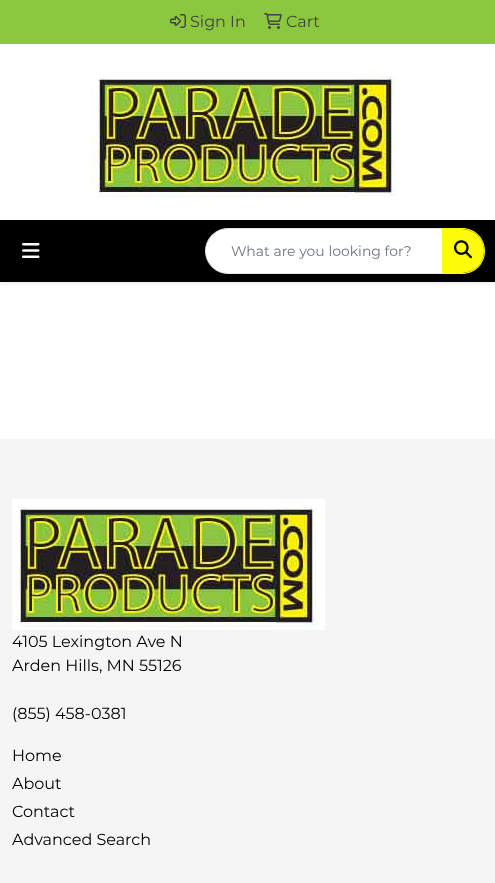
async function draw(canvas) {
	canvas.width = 495;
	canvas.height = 883;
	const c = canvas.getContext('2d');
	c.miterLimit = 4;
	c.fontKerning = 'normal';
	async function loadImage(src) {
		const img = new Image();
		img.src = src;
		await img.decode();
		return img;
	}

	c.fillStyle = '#fff';
	c.fillRect(0, 0, 495, 883);
	c.fillStyle = '#8cc83d';
	c.fillRect(0, 0, 495, 44);
	c.drawImage(await loadImage('img1.png'), 170, 14, 16, 14);
	c.font = '100 16px Montserrat';
	c.fillStyle = '#444';
	c.fillText('Sign In', 190, 27);
	c.drawImage(await loadImage('img2.png'), 264, 13, 18, 16);
	c.fillText('Cart', 286, 27);
	c.drawImage(await loadImage('img3.png'), 91, 69, 304, 128);
	c.fillStyle = '#00000012';
	c.filter = 'blur(2px)';
	c.beginPath();
	c.rect(0, 222, 495, 62);
	c.fill();
	c.filter = 'none';
	c.fillStyle = '#000';
	c.fillRect(0, 220, 495, 62);
	c.drawImage(await loadImage('img4.png'), 22, 243, 18, 15);
	c.fillStyle = '#fff';
	c.beginPath();
	c.roundRect(205.5, 228.5, 237, 45, [22.5, 0, 0, 22.5]);
	c.fill();
	c.strokeStyle = '#e4e4e4';
	c.stroke();
	c.font = '100 14px Montserrat';
	c.fillStyle = '#6c757d';
	c.fillText('What are you looking for?', 231, 256);
	c.fillStyle = '#fffc0a';
	c.beginPath();
	c.roundRect(442, 229, 42, 44, [0, 22, 22, 0]);
	c.fill();
	c.beginPath();
	c.moveTo(442, 228);
	c.lineTo(462, 228);
	c.bezierCurveTo(475, 228, 485, 238, 485, 251);
	c.bezierCurveTo(485, 264, 475, 274, 462, 274);
	c.lineTo(442, 274);
	c.closePath();
	c.moveTo(442, 229);
	c.lineTo(462, 229);
	c.bezierCurveTo(474, 229, 484, 239, 484, 251);
	c.bezierCurveTo(484, 263, 474, 273, 462, 273);
	c.lineTo(442, 273);
	c.closePath();
	c.fill('evenodd');
	c.drawImage(await loadImage('img5.png'), 454, 240, 18, 19);
	c.fillStyle = '#f5f5f5';
	c.fillRect(0, 439, 495, 444);
	c.drawImage(await loadImage('img6.png'), 12, 499, 313, 131);
	c.font = '100 16px Montserrat';
	c.fillStyle = '#000';
	for (const [text, x, y] of [
		['4105 Lexington Ave N', 12, 647],
		['Arden Hills, MN 55126', 12, 671],
		['(855) 458-0381', 12, 719],
		['Home', 12, 761],
		['About', 12, 789],
		['Contact', 12, 817],
		['Advanced Search', 12, 845],
	]) {
		c.fillText(text, x, y);
	}
}

draw(document.querySelector('canvas'));
